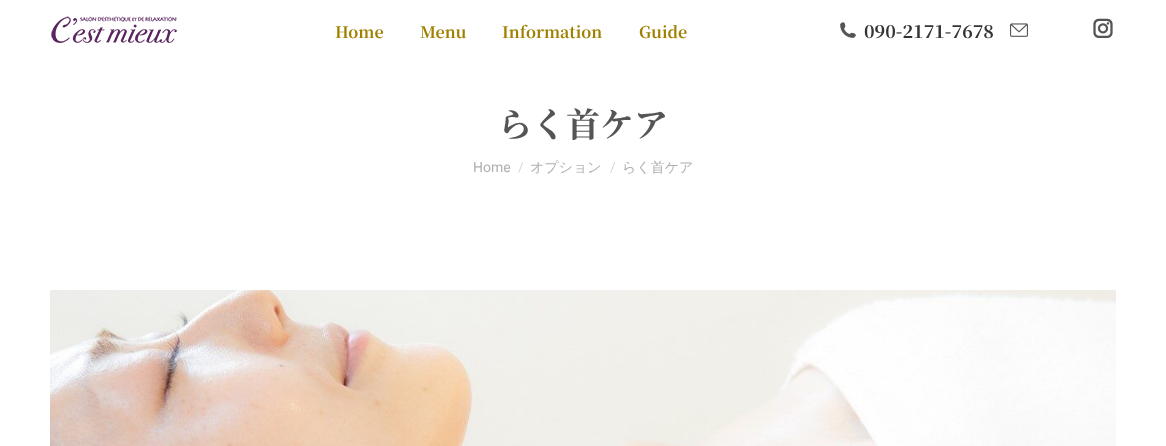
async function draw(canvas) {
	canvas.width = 1166;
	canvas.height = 446;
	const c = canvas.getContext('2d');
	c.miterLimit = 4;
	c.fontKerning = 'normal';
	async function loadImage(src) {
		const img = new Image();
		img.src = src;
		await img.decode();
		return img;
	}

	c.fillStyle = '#fff';
	c.fillRect(0, 0, 1166, 446);
	c.drawImage(await loadImage('img1.png'), 51, 16, 126, 27);
	c.font = 'bold 16px Noto Serif JP';
	c.fillStyle = '#9f8000';
	for (const [text, x, y] of [
		['Home', 335, 38],
		['Menu', 420, 38],
		['Information', 502, 38],
		['Guide', 639, 38],
	]) {
		c.fillText(text, x, y);
	}
	c.drawImage(await loadImage('img2.png'), 840, 22, 16, 16);
	c.font = 'bold 18px Noto Serif JP';
	c.fillStyle = '#333';
	c.fillText('090-2171-7678', 864, 38);
	c.drawImage(await loadImage('img3.png'), 1010, 23, 18, 14);
	c.drawImage(await loadImage('img4.png'), 1093, 18, 20, 20);
	c.font = 'bold 34px Noto Serif JP';
	c.fillStyle = '#555';
	c.fillText('らく首ケア', 498, 137);
	c.font = '14px Roboto';
	c.fillStyle = '#adafb3';
	c.fillText('Home', 473, 172);
	c.fillStyle = '#d6d7d9';
	c.fillText('/', 518, 172);
	c.font = '500 14px WenQuanYi Zen Hei';
	c.fillStyle = '#adafb3';
	c.fillText('オプション', 530, 172);
	c.font = '14px Roboto';
	c.fillStyle = '#d6d7d9';
	c.fillText('/', 610, 172);
	c.font = '500 14px WenQuanYi Zen Hei';
	c.fillStyle = '#adafb3';
	c.fillText('らく首ケア', 622, 172);
	c.drawImage(await loadImage('img5.png'), 50, 290, 1066, 156);
}

draw(document.querySelector('canvas'));
